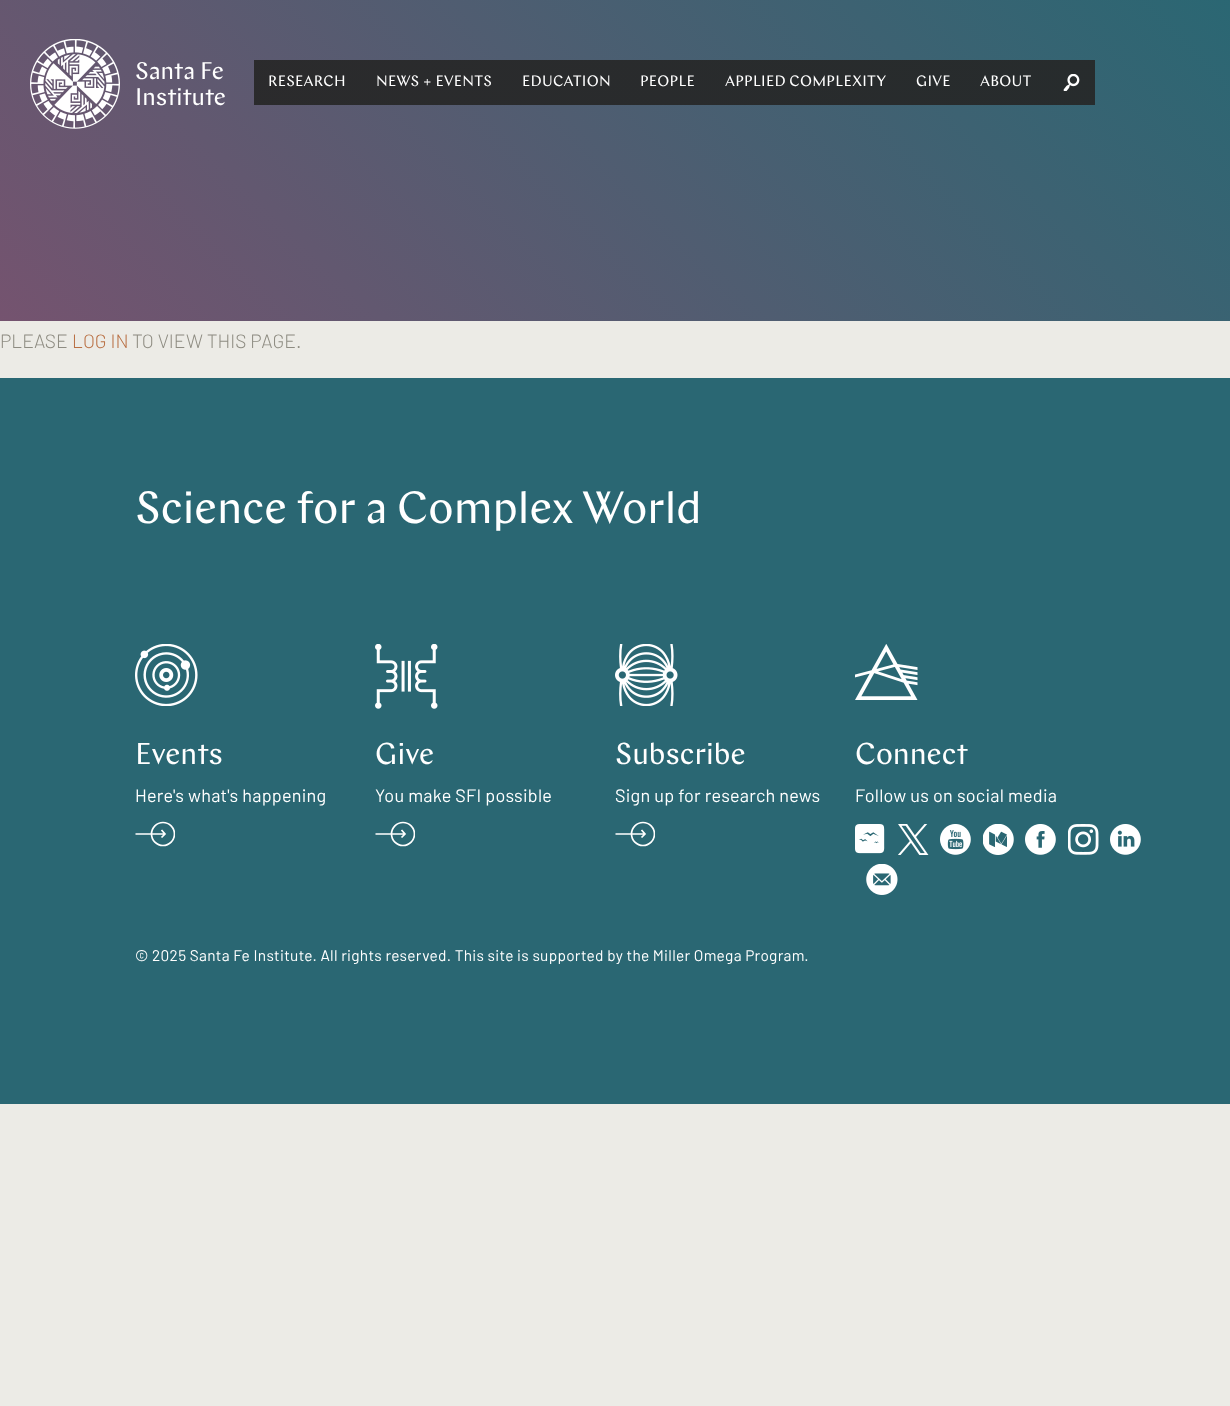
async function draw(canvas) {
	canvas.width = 1230;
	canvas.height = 1406;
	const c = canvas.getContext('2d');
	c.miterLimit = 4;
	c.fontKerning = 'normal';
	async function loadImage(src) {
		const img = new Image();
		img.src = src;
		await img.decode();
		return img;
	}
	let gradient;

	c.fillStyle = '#ecebe6';
	c.fillRect(0, 0, 1230, 1406);
	gradient = c.createLinearGradient(223, 553, 1008, -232);
	gradient.addColorStop(0, '#75536f');
	gradient.addColorStop(1, '#2a6773');
	c.fillStyle = gradient;
	c.fillRect(0, 0, 1230, 321);
	c.drawImage(await loadImage('img1.png'), 30, 39, 90, 90);
	c.font = '24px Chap';
	c.fillStyle = '#fff';
	c.fillText('Santa Fe', 135, 79);
	c.fillText('Institute', 135, 105);
	gradient = c.createLinearGradient(223, 553, 1008, -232);
	gradient.addColorStop(0, '#2d2a2c');
	gradient.addColorStop(1, '#262c2d');
	c.fillStyle = gradient;
	c.fillRect(254, 60, 107, 45);
	c.letterSpacing = '0.25px';
	c.font = '15px Chap';
	c.fillStyle = '#fff';
	c.fillText('RESEARCH', 268, 86);
	gradient = c.createLinearGradient(223, 553, 1008, -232);
	gradient.addColorStop(0, '#2d2a2c');
	gradient.addColorStop(1, '#262c2d');
	c.fillStyle = gradient;
	c.fillRect(361, 60, 145, 45);
	c.fillStyle = '#fff';
	c.fillText('NEWS + EVENTS', 376, 86);
	gradient = c.createLinearGradient(223, 553, 1008, -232);
	gradient.addColorStop(0, '#2d2a2c');
	gradient.addColorStop(1, '#262c2d');
	c.fillStyle = gradient;
	c.fillRect(506, 60, 119, 45);
	c.fillStyle = '#fff';
	c.fillText('EDUCATION', 522, 86);
	gradient = c.createLinearGradient(223, 553, 1008, -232);
	gradient.addColorStop(0, '#2d2a2c');
	gradient.addColorStop(1, '#262c2d');
	c.fillStyle = gradient;
	c.fillRect(625, 60, 85, 45);
	c.fillStyle = '#fff';
	c.fillText('PEOPLE', 640, 86);
	gradient = c.createLinearGradient(223, 553, 1008, -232);
	gradient.addColorStop(0, '#2d2a2c');
	gradient.addColorStop(1, '#262c2d');
	c.fillStyle = gradient;
	c.fillRect(710, 60, 191, 45);
	c.fillStyle = '#fff';
	c.fillText('APPLIED COMPLEXITY', 725, 86);
	gradient = c.createLinearGradient(223, 553, 1008, -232);
	gradient.addColorStop(0, '#2d2a2c');
	gradient.addColorStop(1, '#262c2d');
	c.fillStyle = gradient;
	c.fillRect(901, 60, 64, 45);
	c.fillStyle = '#fff';
	c.fillText('GIVE', 916, 86);
	gradient = c.createLinearGradient(223, 553, 1008, -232);
	gradient.addColorStop(0, '#2d2a2c');
	gradient.addColorStop(1, '#262c2d');
	c.fillStyle = gradient;
	c.fillRect(965, 60, 83, 45);
	c.fillStyle = '#fff';
	c.fillText('ABOUT', 980, 86);
	gradient = c.createLinearGradient(223, 553, 1008, -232);
	gradient.addColorStop(0, '#2d2a2c');
	gradient.addColorStop(1, '#262c2d');
	c.fillStyle = gradient;
	c.fillRect(1048, 60, 47, 45);
	c.drawImage(await loadImage('img2.png'), 1063, 74, 17, 17);
	c.letterSpacing = '0px';
	c.font = '300 19.25px Barlow';
	c.fillStyle = '#8e8c82';
	c.fillText('PLEASE', 0, 348);
	c.fillStyle = '#b97044';
	c.fillText('LOG IN', 72, 348);
	c.fillStyle = '#8e8c82';
	c.fillText('TO VIEW THIS PAGE.', 132, 348);
	c.fillStyle = '#2a6773';
	c.fillRect(0, 378, 1230, 726);
	c.font = '45px Chap';
	c.fillStyle = '#fff';
	c.fillText('Science for a Complex World', 135, 523);
	c.drawImage(await loadImage('img3.png'), 135, 644, 63, 62);
	c.font = '30px Chap';
	c.fillText('Events', 135, 764);
	c.letterSpacing = '0.25px';
	c.font = '18px Barlow';
	c.fillText('Here\'s what\'s happening', 135, 802);
	c.beginPath();
	c.moveTo(165, 834);
	c.lineTo(135.5, 834);
	c.moveTo(161.5, 830);
	c.lineTo(165, 834);
	c.lineTo(161.5, 837.5);
	c.strokeStyle = '#fff';
	c.lineWidth = 1.7;
	c.stroke();
	c.save();
	c.beginPath();
	c.rect(135, 819, 40, 30);
	c.clip();
	c.beginPath();
	c.arc(163, 834, 11.5, 0, 2 * Math.PI);
	c.stroke();
	c.restore();
	c.drawImage(await loadImage('img4.png'), 375, 644, 63, 65);
	c.letterSpacing = '0px';
	c.font = '30px Chap';
	c.fillText('Give', 375, 764);
	c.letterSpacing = '0.25px';
	c.font = '18px Barlow';
	c.fillText('You make SFI possible', 375, 802);
	c.beginPath();
	c.moveTo(405, 834);
	c.lineTo(375.5, 834);
	c.moveTo(401.5, 830);
	c.lineTo(405, 834);
	c.lineTo(401.5, 837.5);
	c.stroke();
	c.save();
	c.beginPath();
	c.rect(375, 819, 40, 30);
	c.clip();
	c.beginPath();
	c.arc(403, 834, 11.5, 0, 2 * Math.PI);
	c.stroke();
	c.restore();
	c.drawImage(await loadImage('img5.png'), 615, 644, 63, 62);
	c.letterSpacing = '0px';
	c.font = '30px Chap';
	c.fillText('Subscribe', 615, 764);
	c.letterSpacing = '0.25px';
	c.font = '18px Barlow';
	c.fillText('Sign up for research news', 615, 802);
	c.beginPath();
	c.moveTo(645, 834);
	c.lineTo(615.5, 834);
	c.moveTo(641.5, 830);
	c.lineTo(645, 834);
	c.lineTo(641.5, 837.5);
	c.stroke();
	c.save();
	c.beginPath();
	c.rect(615, 819, 40, 30);
	c.clip();
	c.beginPath();
	c.arc(643, 834, 11.5, 0, 2 * Math.PI);
	c.stroke();
	c.restore();
	c.drawImage(await loadImage('img6.png'), 855, 644, 63, 56);
	c.letterSpacing = '0px';
	c.font = '30px Chap';
	c.fillText('Connect', 855, 764);
	c.letterSpacing = '0.25px';
	c.font = '18px Barlow';
	c.fillText('Follow us on social media', 855, 802);
	c.drawImage(await loadImage('img7.png'), 855, 824, 30, 30);
	c.drawImage(await loadImage('img8.png'), 898, 824, 31, 31);
	c.drawImage(await loadImage('img9.png'), 940, 824, 31, 31);
	c.drawImage(await loadImage('img10.png'), 983, 824, 31, 31);
	c.drawImage(await loadImage('img11.png'), 1025, 824, 31, 31);
	c.drawImage(await loadImage('img12.png'), 1068, 824, 31, 31);
	c.drawImage(await loadImage('img13.png'), 1110, 824, 31, 31);
	c.drawImage(await loadImage('img14.png'), 866, 864, 32, 31);
	c.letterSpacing = '0.3px';
	c.font = '15.4px Barlow';
	c.fillText('© 2025 Santa Fe Institute. All rights reserved. This site is supported by the Miller Omega Program.', 135, 961);
}

draw(document.querySelector('canvas'));
